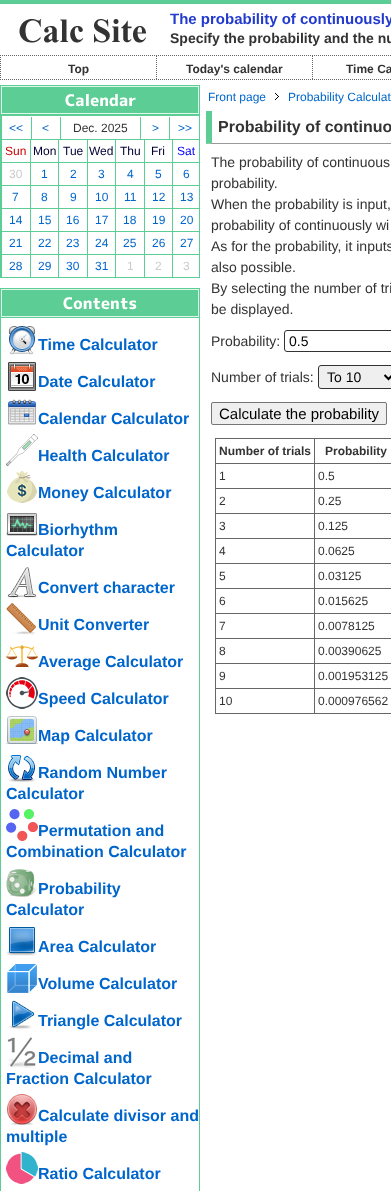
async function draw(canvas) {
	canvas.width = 391;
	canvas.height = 1191;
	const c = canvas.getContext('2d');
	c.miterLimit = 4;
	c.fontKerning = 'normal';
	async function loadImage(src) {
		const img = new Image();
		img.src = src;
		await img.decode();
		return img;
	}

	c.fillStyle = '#fff';
	c.fillRect(0, 0, 391, 1191);
	c.fillStyle = '#5ccd95';
	c.fillRect(0, 0, 391, 4);
	c.drawImage(await loadImage('img1.png'), 19, 19, 127, 24);
	c.font = 'bold 15px Liberation Sans';
	c.fillStyle = '#223ace';
	c.fillText('The probability of continuously', 170, 24);
	c.font = 'bold 14px Liberation Sans';
	c.fillStyle = '#333';
	c.fillText('Specify the probability and the nu', 170, 43);
	c.beginPath();
	c.moveTo(0, 55.5);
	c.lineTo(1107, 55.5);
	c.strokeStyle = '#666';
	c.setLineDash([1, 1]);
	c.stroke();
	c.beginPath();
	c.moveTo(0, 79.5);
	c.lineTo(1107, 79.5);
	c.stroke();
	c.beginPath();
	c.moveTo(0.5, 55);
	c.lineTo(0.5, 80);
	c.stroke();
	c.beginPath();
	c.moveTo(156.5, 56);
	c.lineTo(156.5, 79);
	c.stroke();
	c.font = 'bold 12px Liberation Sans';
	c.fillText('Top', 68, 73);
	c.beginPath();
	c.moveTo(312.5, 56);
	c.lineTo(312.5, 79);
	c.stroke();
	c.fillText('Today\'s calendar', 186, 73);
	c.fillText('Time Ca', 346, 73);
	c.drawImage(await loadImage('img2.png'), 0, 85, 200, 30);
	for (const [x, y, w, h, color] of [
		[199, 115, 1, 163, '#5ccd95'],
		[0, 277, 200, 1, '#5ccd95'],
		[0, 115, 1, 163, '#5ccd95'],
		[1, 115, 199, 1, '#5ccd95'],
		[1, 115, 1, 24, '#5ccd95'],
		[31, 117, 1, 22, '#5ccd95'],
	]) {
		c.fillStyle = color;
		c.fillRect(x, y, w, h);
	}
	c.font = '12px Liberation Sans';
	c.fillStyle = '#06c';
	c.fillText('<<', 9, 132);
	c.fillStyle = '#5ccd95';
	c.fillRect(60, 117, 1, 22);
	c.fillStyle = '#06c';
	c.fillText('<', 42, 132);
	c.fillStyle = '#333';
	c.fillText('Dec. 2025', 73, 132);
	c.fillStyle = '#5ccd95';
	c.fillRect(140, 117, 1, 22);
	c.fillStyle = '#06c';
	c.fillText('>', 152, 132);
	c.fillStyle = '#5ccd95';
	c.fillRect(169, 117, 1, 22);
	c.fillStyle = '#06c';
	c.fillText('>>', 178, 132);
	c.fillStyle = '#5ccd95';
	c.fillRect(1, 139, 199, 1);
	c.fillRect(1, 139, 1, 23);
	c.fillStyle = '#c00';
	c.fillText('Sun', 5, 155);
	c.fillStyle = '#5ccd95';
	c.fillRect(30, 139, 1, 23);
	c.fillStyle = '#003';
	c.fillText('Mon', 33, 155);
	c.fillStyle = '#5ccd95';
	c.fillRect(58, 139, 1, 23);
	c.fillStyle = '#003';
	c.fillText('Tue', 63, 155);
	c.fillStyle = '#5ccd95';
	c.fillRect(87, 139, 1, 23);
	c.fillStyle = '#003';
	c.fillText('Wed', 89, 155);
	c.fillStyle = '#5ccd95';
	c.fillRect(115, 139, 1, 23);
	c.fillStyle = '#003';
	c.fillText('Thu', 120, 155);
	c.fillStyle = '#5ccd95';
	c.fillRect(144, 139, 1, 23);
	c.fillStyle = '#003';
	c.fillText('Fri', 151, 155);
	c.fillStyle = '#5ccd95';
	c.fillRect(172, 139, 1, 23);
	c.fillStyle = '#00f';
	c.fillText('Sat', 177, 155);
	c.fillStyle = '#5ccd95';
	c.fillRect(1, 162, 199, 1);
	c.fillRect(1, 162, 1, 23);
	c.fillStyle = '#ccc';
	c.fillText('30', 9, 178);
	c.fillStyle = '#5ccd95';
	c.fillRect(30, 162, 1, 23);
	c.fillStyle = '#06c';
	c.fillText('1', 41, 178);
	c.fillStyle = '#5ccd95';
	c.fillRect(58, 162, 1, 23);
	c.fillStyle = '#06c';
	c.fillText('2', 70, 178);
	c.fillStyle = '#5ccd95';
	c.fillRect(87, 162, 1, 23);
	c.fillStyle = '#06c';
	c.fillText('3', 98, 178);
	c.fillStyle = '#5ccd95';
	c.fillRect(115, 162, 1, 23);
	c.fillStyle = '#06c';
	c.fillText('4', 127, 178);
	c.fillStyle = '#5ccd95';
	c.fillRect(144, 162, 1, 23);
	c.fillStyle = '#06c';
	c.fillText('5', 155, 178);
	c.fillStyle = '#5ccd95';
	c.fillRect(172, 162, 1, 23);
	c.fillStyle = '#06c';
	c.fillText('6', 183, 178);
	c.fillStyle = '#5ccd95';
	c.fillRect(1, 185, 199, 1);
	c.fillRect(1, 185, 1, 23);
	c.fillStyle = '#06c';
	c.fillText('7', 12, 201);
	c.fillStyle = '#5ccd95';
	c.fillRect(30, 185, 1, 23);
	c.fillStyle = '#06c';
	c.fillText('8', 41, 201);
	c.fillStyle = '#5ccd95';
	c.fillRect(58, 185, 1, 23);
	c.fillStyle = '#06c';
	c.fillText('9', 70, 201);
	c.fillStyle = '#5ccd95';
	c.fillRect(87, 185, 1, 23);
	c.fillStyle = '#06c';
	c.fillText('10', 95, 201);
	c.fillStyle = '#5ccd95';
	c.fillRect(115, 185, 1, 23);
	c.fillStyle = '#06c';
	c.fillText('11', 124, 201);
	c.fillStyle = '#5ccd95';
	c.fillRect(144, 185, 1, 23);
	c.fillStyle = '#06c';
	c.fillText('12', 152, 201);
	c.fillStyle = '#5ccd95';
	c.fillRect(172, 185, 1, 23);
	c.fillStyle = '#06c';
	c.fillText('13', 180, 201);
	c.fillStyle = '#5ccd95';
	c.fillRect(1, 208, 199, 1);
	c.fillRect(1, 208, 1, 23);
	c.fillStyle = '#06c';
	c.fillText('14', 9, 224);
	c.fillStyle = '#5ccd95';
	c.fillRect(30, 208, 1, 23);
	c.fillStyle = '#06c';
	c.fillText('15', 38, 224);
	c.fillStyle = '#5ccd95';
	c.fillRect(58, 208, 1, 23);
	c.fillStyle = '#06c';
	c.fillText('16', 66, 224);
	c.fillStyle = '#5ccd95';
	c.fillRect(87, 208, 1, 23);
	c.fillStyle = '#06c';
	c.fillText('17', 95, 224);
	c.fillStyle = '#5ccd95';
	c.fillRect(115, 208, 1, 23);
	c.fillStyle = '#06c';
	c.fillText('18', 123, 224);
	c.fillStyle = '#5ccd95';
	c.fillRect(144, 208, 1, 23);
	c.fillStyle = '#06c';
	c.fillText('19', 152, 224);
	c.fillStyle = '#5ccd95';
	c.fillRect(172, 208, 1, 23);
	c.fillStyle = '#06c';
	c.fillText('20', 180, 224);
	c.fillStyle = '#5ccd95';
	c.fillRect(1, 231, 199, 1);
	c.fillRect(1, 231, 1, 23);
	c.fillStyle = '#06c';
	c.fillText('21', 9, 247);
	c.fillStyle = '#5ccd95';
	c.fillRect(30, 231, 1, 23);
	c.fillStyle = '#06c';
	c.fillText('22', 38, 247);
	c.fillStyle = '#5ccd95';
	c.fillRect(58, 231, 1, 23);
	c.fillStyle = '#06c';
	c.fillText('23', 66, 247);
	c.fillStyle = '#5ccd95';
	c.fillRect(87, 231, 1, 23);
	c.fillStyle = '#06c';
	c.fillText('24', 95, 247);
	c.fillStyle = '#5ccd95';
	c.fillRect(115, 231, 1, 23);
	c.fillStyle = '#06c';
	c.fillText('25', 123, 247);
	c.fillStyle = '#5ccd95';
	c.fillRect(144, 231, 1, 23);
	c.fillStyle = '#06c';
	c.fillText('26', 152, 247);
	c.fillStyle = '#5ccd95';
	c.fillRect(172, 231, 1, 23);
	c.fillStyle = '#06c';
	c.fillText('27', 180, 247);
	c.fillStyle = '#5ccd95';
	c.fillRect(1, 254, 199, 1);
	c.fillRect(1, 254, 1, 23);
	c.fillStyle = '#06c';
	c.fillText('28', 9, 270);
	c.fillStyle = '#5ccd95';
	c.fillRect(30, 254, 1, 23);
	c.fillStyle = '#06c';
	c.fillText('29', 38, 270);
	c.fillStyle = '#5ccd95';
	c.fillRect(58, 254, 1, 23);
	c.fillStyle = '#06c';
	c.fillText('30', 66, 270);
	c.fillStyle = '#5ccd95';
	c.fillRect(87, 254, 1, 23);
	c.fillStyle = '#06c';
	c.fillText('31', 95, 270);
	c.fillStyle = '#5ccd95';
	c.fillRect(115, 254, 1, 23);
	c.fillStyle = '#ccc';
	c.fillText('1', 127, 270);
	c.fillStyle = '#5ccd95';
	c.fillRect(144, 254, 1, 23);
	c.fillStyle = '#ccc';
	c.fillText('2', 155, 270);
	c.fillStyle = '#5ccd95';
	c.fillRect(172, 254, 1, 23);
	c.fillStyle = '#ccc';
	c.fillText('3', 183, 270);
	c.drawImage(await loadImage('img3.png'), 0, 288, 200, 30);
	c.fillStyle = '#5ccd95';
	c.fillRect(199, 318, 1, 873);
	c.fillRect(0, 318, 1, 873);
	c.drawImage(await loadImage('img4.png'), 8, 326, 28, 29);
	c.font = 'bold 16px Liberation Sans';
	c.fillStyle = '#06c';
	c.fillText('Time Calculator', 38, 350);
	c.drawImage(await loadImage('img5.png'), 8, 362, 28, 29);
	c.fillText('Date Calculator', 38, 387);
	c.drawImage(await loadImage('img6.png'), 8, 399, 28, 26);
	c.fillText('Calendar Calculator', 38, 424);
	c.drawImage(await loadImage('img7.png'), 6, 434, 32, 32);
	c.fillText('Health Calculator', 38, 461);
	c.drawImage(await loadImage('img8.png'), 7, 471, 30, 32);
	c.fillText('Money Calculator', 38, 498);
	c.drawImage(await loadImage('img9.png'), 6, 513, 32, 23);
	c.fillText('Biorhythm', 38, 535);
	c.fillText('Calculator', 6, 556);
	c.drawImage(await loadImage('img10.png'), 7, 567, 30, 31);
	c.fillText('Convert character', 38, 593);
	c.drawImage(await loadImage('img11.png'), 6, 603, 30, 32);
	c.fillText('Unit Converter', 38, 630);
	c.drawImage(await loadImage('img12.png'), 6, 645, 32, 22);
	c.fillText('Average Calculator', 38, 667);
	c.drawImage(await loadImage('img13.png'), 6, 677, 32, 32);
	c.fillText('Speed Calculator', 38, 704);
	c.drawImage(await loadImage('img14.png'), 6, 716, 32, 28);
	c.fillText('Map Calculator', 38, 741);
	c.drawImage(await loadImage('img15.png'), 8, 755, 28, 27);
	c.fillText('Random Number', 38, 778);
	c.fillText('Calculator', 6, 799);
	c.drawImage(await loadImage('img16.png'), 6, 809, 32, 32);
	c.fillText('Permutation and', 38, 836);
	c.fillText('Combination Calculator', 6, 857);
	c.drawImage(await loadImage('img17.png'), 6, 869, 31, 28);
	c.fillText('Probability', 38, 894);
	c.fillText('Calculator', 6, 915);
	c.drawImage(await loadImage('img18.png'), 6, 927, 31, 29);
	c.fillText('Area Calculator', 38, 952);
	c.drawImage(await loadImage('img19.png'), 7, 964, 30, 29);
	c.fillText('Volume Calculator', 38, 989);
	c.drawImage(await loadImage('img20.png'), 9, 1000, 26, 29);
	c.fillText('Triangle Calculator', 38, 1026);
	c.drawImage(await loadImage('img21.png'), 7, 1037, 29, 31);
	c.fillText('Decimal and', 38, 1063);
	c.fillText('Fraction Calculator', 6, 1084);
	c.drawImage(await loadImage('img22.png'), 7, 1094, 30, 31);
	c.fillText('Calculate divisor and', 38, 1121);
	c.fillText('multiple', 6, 1142);
	c.drawImage(await loadImage('img23.png'), 6, 1152, 32, 32);
	c.fillText('Ratio Calculator', 38, 1179);
	c.font = '12px Liberation Sans';
	c.fillText('Front page', 208, 101);
	c.drawImage(await loadImage('img24.png'), 275, 93, 4, 7);
	c.fillText('Probability Calculat', 288, 101);
	c.fillStyle = '#999';
	c.beginPath();
	c.moveTo(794, 144);
	c.lineTo(206, 144);
	c.lineTo(212, 143);
	c.lineTo(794, 143);
	c.closePath();
	c.fill();
	c.fillStyle = '#5ccd95';
	c.beginPath();
	c.moveTo(206, 144);
	c.lineTo(206, 111);
	c.lineTo(212, 111);
	c.lineTo(212, 143);
	c.closePath();
	c.fill();
	c.font = 'bold 16px Liberation Sans';
	c.fillStyle = '#333';
	c.fillText('Probability of continuo', 218, 132);
	c.font = '14px Liberation Sans';
	for (const [text, x, y] of [
		['The probability of continuous', 211, 167],
		['probability.', 211, 188],
		['When the probability is input,', 211, 209],
		['probability of continuously wi', 211, 230],
		['As for the probability, it inputs', 211, 251],
		['also possible.', 211, 272],
		['By selecting the number of tri', 211, 293],
		['be displayed.', 211, 314],
		['Probability:', 211, 346],
	]) {
		c.fillText(text, x, y);
	}
	c.beginPath();
	c.roundRect(284.5, 330.5, 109, 21, 2.5);
	c.strokeStyle = '#333';
	c.setLineDash([]);
	c.stroke();
	c.fillStyle = '#000';
	c.fillText('0.5', 289, 346);
	c.fillStyle = '#333';
	c.fillText('Number of trials:', 211, 382);
	c.fillStyle = '#efefef';
	c.beginPath();
	c.roundRect(318.5, 365.5, 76, 23, 2.5);
	c.fill();
	c.stroke();
	c.beginPath();
	c.moveTo(384.5, 375);
	c.lineTo(388.5, 379);
	c.lineTo(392.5, 375);
	c.strokeStyle = '#000';
	c.lineWidth = 2;
	c.stroke();
	c.fillStyle = '#000';
	c.fillText('To 10', 327, 382);
	c.fillStyle = '#efefef';
	c.beginPath();
	c.roundRect(211.5, 402.5, 175, 22, 1.5);
	c.fill();
	c.strokeStyle = '#767676';
	c.lineWidth = 1;
	c.stroke();
	c.font = '15px Liberation Sans';
	c.fillStyle = '#000';
	c.fillText('Calculate the probability', 219, 419);
	for (const [x, y, w, h, color] of [
		[215, 438, 176, 1, '#666'],
		[215, 438, 1, 276, '#666'],
		[314, 439, 1, 275, '#666'],
		[216, 463, 175, 1, '#666'],
	]) {
		c.fillStyle = color;
		c.fillRect(x, y, w, h);
	}
	c.font = 'bold 12px Liberation Sans';
	c.fillStyle = '#333';
	c.fillText('Number of trials', 219, 455);
	c.fillText('Probability', 325, 455);
	c.fillStyle = '#666';
	c.fillRect(216, 488, 175, 1);
	c.font = '12px Liberation Sans';
	c.fillStyle = '#333';
	c.fillText('1', 219, 480);
	c.fillText('0.5', 318, 480);
	c.fillStyle = '#666';
	c.fillRect(216, 513, 175, 1);
	c.fillStyle = '#333';
	c.fillText('2', 219, 505);
	c.fillText('0.25', 318, 505);
	c.fillStyle = '#666';
	c.fillRect(216, 538, 175, 1);
	c.fillStyle = '#333';
	c.fillText('3', 219, 530);
	c.fillText('0.125', 318, 530);
	c.fillStyle = '#666';
	c.fillRect(216, 563, 175, 1);
	c.fillStyle = '#333';
	c.fillText('4', 219, 555);
	c.fillText('0.0625', 318, 555);
	c.fillStyle = '#666';
	c.fillRect(216, 588, 175, 1);
	c.fillStyle = '#333';
	c.fillText('5', 219, 580);
	c.fillText('0.03125', 318, 580);
	c.fillStyle = '#666';
	c.fillRect(216, 613, 175, 1);
	c.fillStyle = '#333';
	c.fillText('6', 219, 605);
	c.fillText('0.015625', 318, 605);
	c.fillStyle = '#666';
	c.fillRect(216, 638, 175, 1);
	c.fillStyle = '#333';
	c.fillText('7', 219, 630);
	c.fillText('0.0078125', 318, 630);
	c.fillStyle = '#666';
	c.fillRect(216, 663, 175, 1);
	c.fillStyle = '#333';
	c.fillText('8', 219, 655);
	c.fillText('0.00390625', 318, 655);
	c.fillStyle = '#666';
	c.fillRect(216, 688, 175, 1);
	c.fillStyle = '#333';
	c.fillText('9', 219, 680);
	c.fillText('0.001953125', 318, 680);
	c.fillStyle = '#666';
	c.fillRect(216, 713, 175, 1);
	c.fillStyle = '#333';
	c.fillText('10', 219, 705);
	c.fillText('0.000976562', 318, 705);
}

draw(document.querySelector('canvas'));
